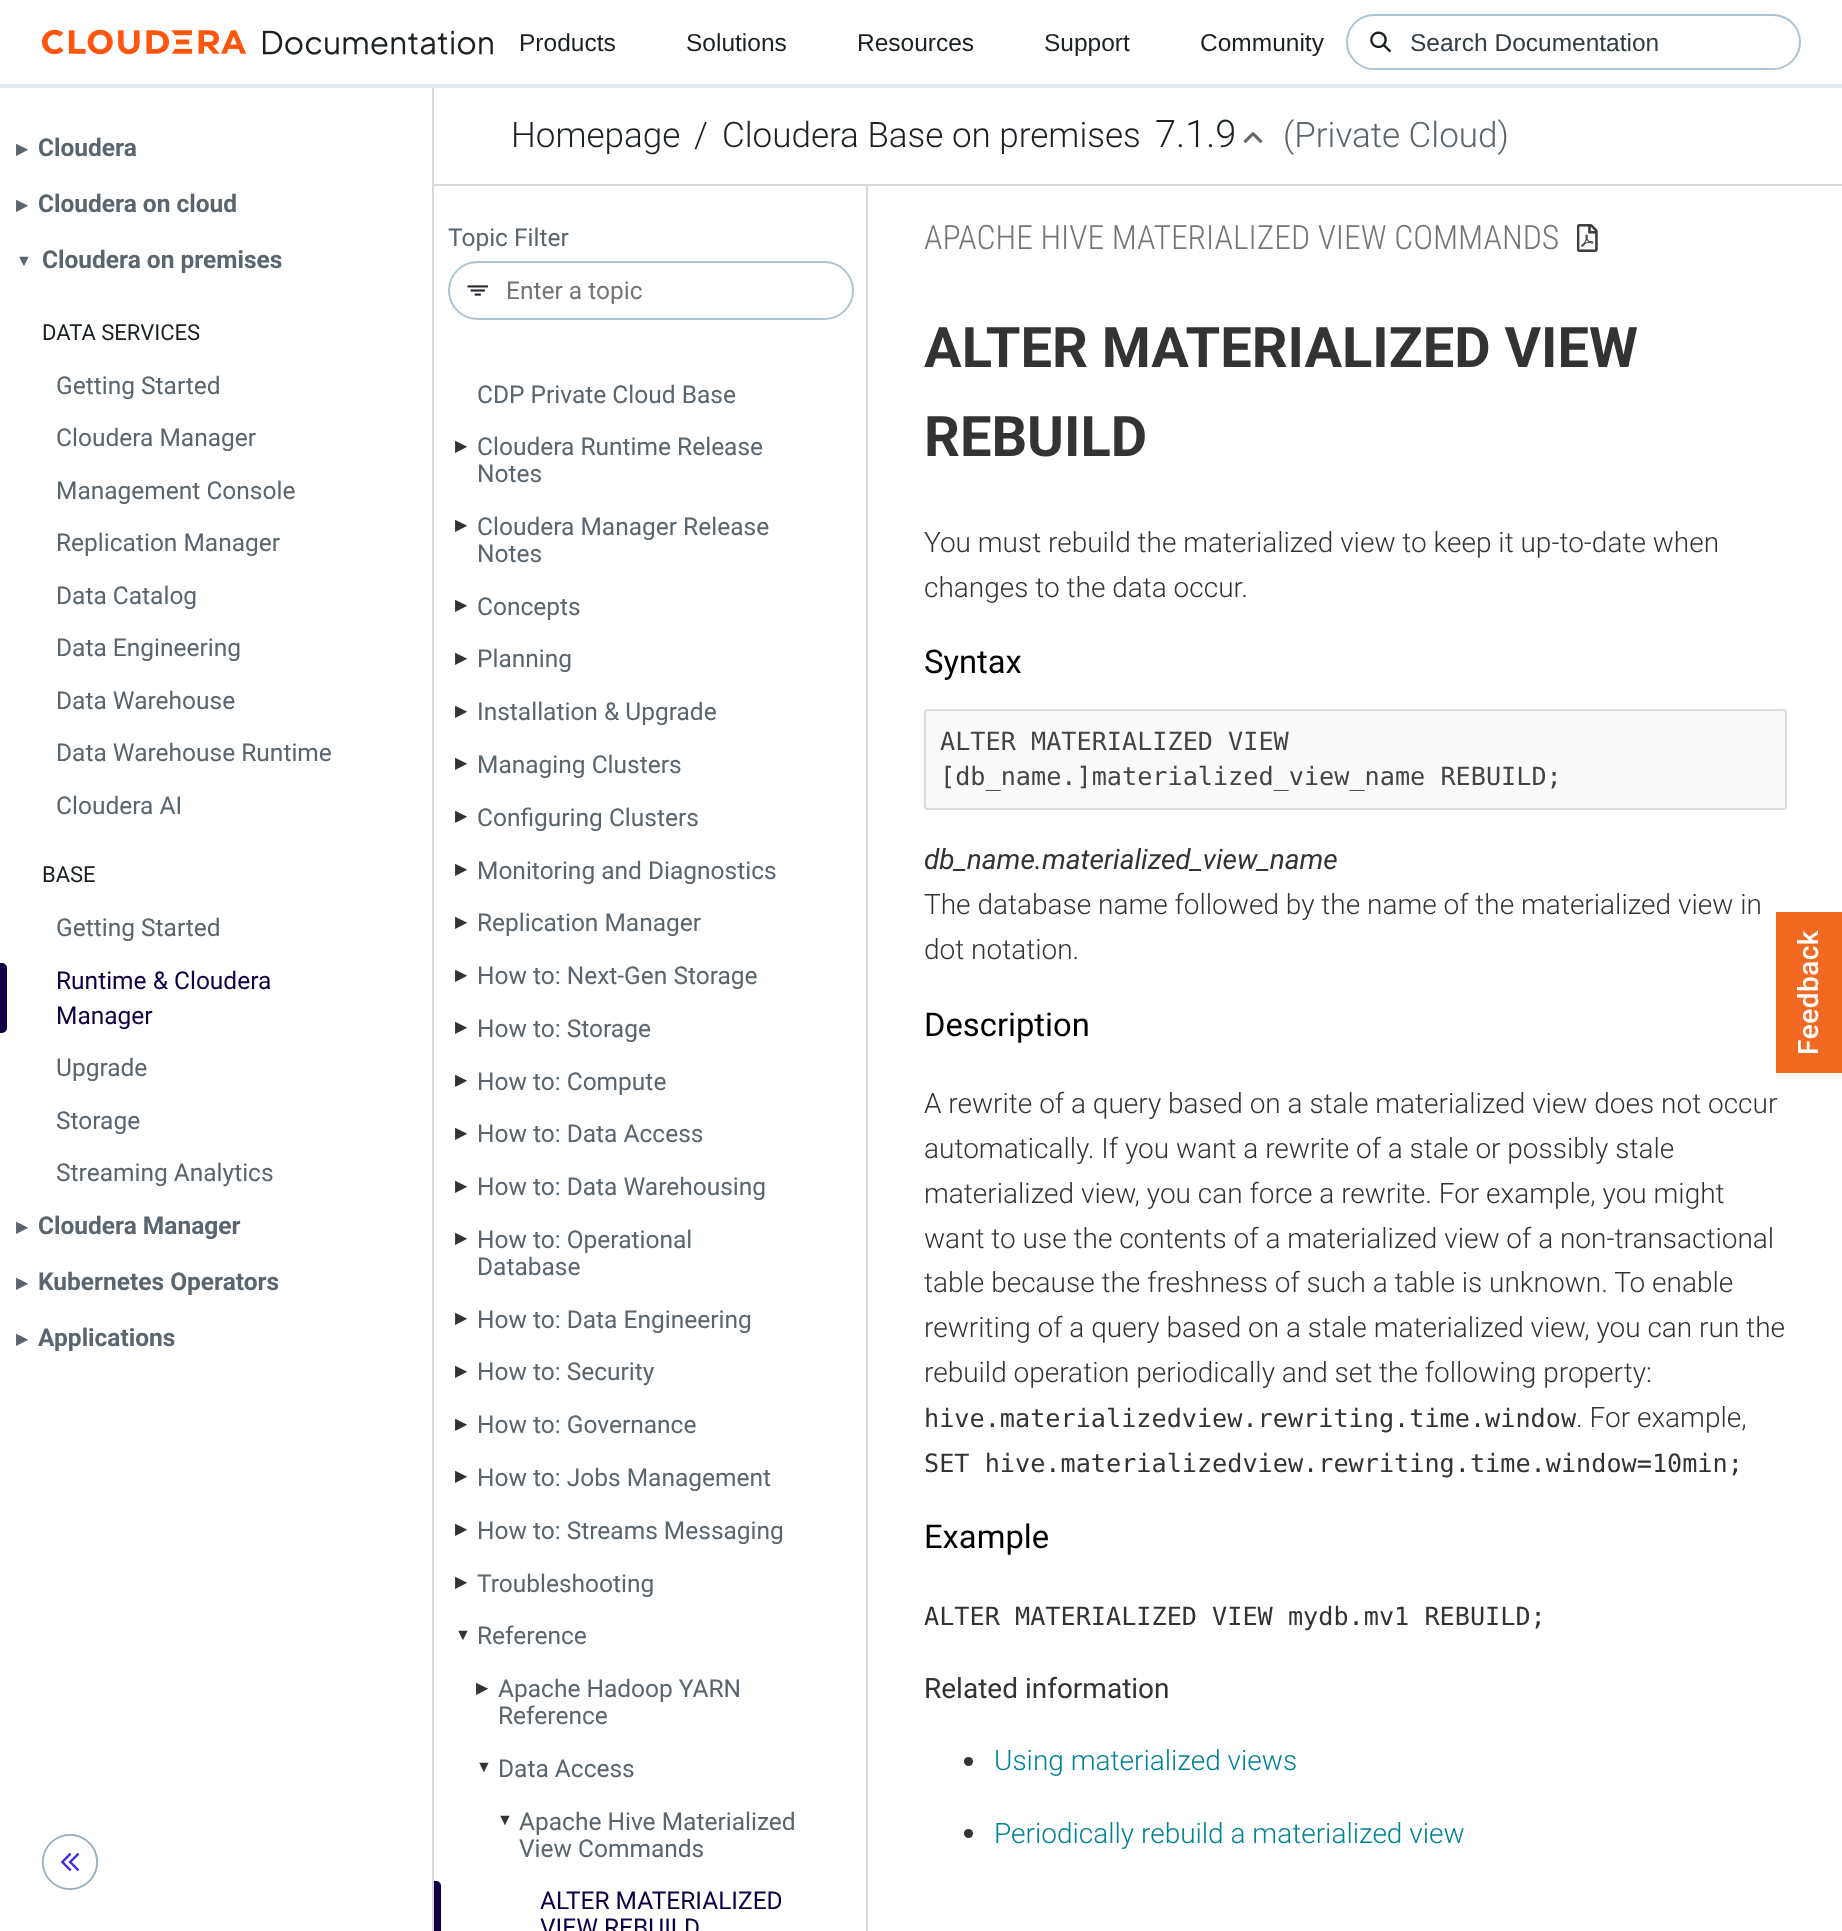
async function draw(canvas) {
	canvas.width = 1842;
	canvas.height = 1931;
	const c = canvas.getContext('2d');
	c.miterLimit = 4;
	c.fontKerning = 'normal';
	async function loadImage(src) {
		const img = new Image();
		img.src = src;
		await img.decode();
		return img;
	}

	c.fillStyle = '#fff';
	c.fillRect(0, 0, 1842, 1931);
	c.fillStyle = '#e5ecf1';
	c.fillRect(0, 84, 1842, 4);
	c.drawImage(await loadImage('img1.png'), 42, 29, 451, 26);
	c.font = '24.5px Liberation Sans';
	c.fillStyle = '#1a2024';
	for (const [text, x, y] of [
		['Products', 519, 51],
		['Solutions', 686, 51],
		['Resources', 857, 51],
		['Support', 1044, 51],
		['Community', 1200, 51],
	]) {
		c.fillText(text, x, y);
	}
	c.beginPath();
	c.roundRect(1347, 15, 453, 54, 27);
	c.strokeStyle = '#afc4d2';
	c.lineWidth = 2;
	c.stroke();
	c.drawImage(await loadImage('img2.png'), 1370, 31, 22, 22);
	c.fillStyle = '#333d43';
	c.fillText('Search Documentation', 1410, 51);
	c.fillStyle = '#d6d8db';
	c.fillRect(432, 88, 2, 1843);
	c.font = '16px DejaVu Sans';
	c.fillStyle = '#5a656d';
	c.fillText('▶︎', 16, 154);
	c.font = 'bold 24.5px Roboto';
	c.fillText('Cloudera', 38, 156);
	c.font = '16px DejaVu Sans';
	c.fillText('▶︎', 16, 210);
	c.font = 'bold 24.5px Roboto';
	c.fillText('Cloudera on cloud', 38, 212);
	c.font = '16px Liberation Sans';
	c.fillText('▼', 16, 266);
	c.font = 'bold 24.5px Roboto';
	c.fillText('Cloudera on premises', 42, 268);
	c.font = '22px Roboto';
	c.fillStyle = '#1a2024';
	c.fillText('DATA SERVICES', 42, 340);
	c.font = '24.5px Roboto';
	c.fillStyle = '#5a656d';
	for (const [text, x, y] of [
		['Getting Started', 56, 394],
		['Cloudera Manager', 56, 446],
		['Management Console', 56, 499],
		['Replication Manager', 56, 551],
		['Data Catalog', 56, 604],
		['Data Engineering', 56, 656],
		['Data Warehouse', 56, 709],
		['Data Warehouse Runtime', 56, 761],
		['Cloudera AI', 56, 814],
	]) {
		c.fillText(text, x, y);
	}
	c.font = '22px Roboto';
	c.fillStyle = '#1a2024';
	c.fillText('BASE', 42, 882);
	c.font = '24.5px Roboto';
	c.fillStyle = '#5a656d';
	c.fillText('Getting Started', 56, 936);
	c.fillStyle = '#120046';
	c.beginPath();
	c.roundRect(0, 963, 7, 70, [0, 5, 5, 0]);
	c.fill();
	c.fillText('Runtime & Cloudera', 56, 989);
	c.fillText('Manager', 56, 1024);
	c.fillStyle = '#5a656d';
	for (const [text, x, y] of [
		['Upgrade', 56, 1076],
		['Storage', 56, 1129],
		['Streaming Analytics', 56, 1181],
	]) {
		c.fillText(text, x, y);
	}
	c.font = '16px DejaVu Sans';
	c.fillText('▶︎', 16, 1232);
	c.font = 'bold 24.5px Roboto';
	c.fillText('Cloudera Manager', 38, 1234);
	c.font = '16px DejaVu Sans';
	c.fillText('▶︎', 16, 1288);
	c.font = 'bold 24.5px Roboto';
	c.fillText('Kubernetes Operators', 38, 1290);
	c.font = '16px DejaVu Sans';
	c.fillText('▶︎', 16, 1344);
	c.font = 'bold 24.5px Roboto';
	c.fillText('Applications', 38, 1346);
	c.drawImage(await loadImage('img3.png'), 42, 1834, 56, 56);
	c.save();
	c.beginPath();
	c.rect(434, 184, 434, 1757);
	c.clip();
	c.fillStyle = '#d6d8db';
	c.beginPath();
	c.moveTo(261, 10);
	c.lineTo(1041, 10);
	c.lineTo(1041, 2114);
	c.lineTo(261, 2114);
	c.closePath();
	c.moveTo(432, 186);
	c.lineTo(866, 186);
	c.lineTo(866, 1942);
	c.lineTo(432, 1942);
	c.closePath();
	c.fill('evenodd');
	c.restore();
	c.fillStyle = '#d6d8db';
	c.beginPath();
	c.moveTo(434, 184);
	c.lineTo(434, 186);
	c.lineTo(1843, 186);
	c.lineTo(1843, 89);
	c.lineTo(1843, 184);
	c.closePath();
	c.fill();
	c.font = '300 35px Roboto';
	c.fillStyle = '#1a2024';
	for (const [text, x, y] of [
		['Homepage', 511, 147],
		['/', 694, 147],
		['Cloudera Base on premises', 722, 147],
	]) {
		c.fillText(text, x, y);
	}
	c.font = '300 38px Roboto';
	c.fillText('7.1.9', 1155, 147);
	c.drawImage(await loadImage('img4.png'), 1243, 132, 20, 11);
	c.font = '300 35px Roboto';
	c.fillStyle = '#5a656d';
	c.fillText('(Private Cloud)', 1283, 147);
	c.font = '24.5px Roboto';
	c.fillText('Topic Filter', 448, 246);
	c.beginPath();
	c.roundRect(449, 262, 404, 57, 28.5);
	c.stroke();
	c.drawImage(await loadImage('img5.png'), 467, 285, 21, 11);
	c.fillStyle = '#757575';
	c.fillText('Enter a topic', 506, 299);
	c.fillStyle = '#5a656d';
	c.fillText('CDP Private Cloud Base', 477, 403);
	c.font = '16px DejaVu Sans';
	c.fillStyle = '#333';
	c.fillText('▶︎', 455, 451);
	c.font = '24.5px Roboto';
	c.fillStyle = '#5a656d';
	c.fillText('Cloudera Runtime Release', 477, 455);
	c.fillText('Notes', 477, 482);
	c.font = '16px DejaVu Sans';
	c.fillStyle = '#333';
	c.fillText('▶︎', 455, 530);
	c.font = '24.5px Roboto';
	c.fillStyle = '#5a656d';
	c.fillText('Cloudera Manager Release', 477, 535);
	c.fillText('Notes', 477, 562);
	c.font = '16px DejaVu Sans';
	c.fillStyle = '#333';
	c.fillText('▶︎', 455, 610);
	c.font = '24.5px Roboto';
	c.fillStyle = '#5a656d';
	c.fillText('Concepts', 477, 615);
	c.font = '16px DejaVu Sans';
	c.fillStyle = '#333';
	c.fillText('▶︎', 455, 663);
	c.font = '24.5px Roboto';
	c.fillStyle = '#5a656d';
	c.fillText('Planning', 477, 667);
	c.font = '16px DejaVu Sans';
	c.fillStyle = '#333';
	c.fillText('▶︎', 455, 716);
	c.font = '24.5px Roboto';
	c.fillStyle = '#5a656d';
	c.fillText('Installation & Upgrade', 477, 720);
	c.font = '16px DejaVu Sans';
	c.fillStyle = '#333';
	c.fillText('▶︎', 455, 768);
	c.font = '24.5px Roboto';
	c.fillStyle = '#5a656d';
	c.fillText('Managing Clusters', 477, 773);
	c.font = '16px DejaVu Sans';
	c.fillStyle = '#333';
	c.fillText('▶︎', 455, 821);
	c.font = '24.5px Roboto';
	c.fillStyle = '#5a656d';
	c.fillText('Configuring Clusters', 477, 826);
	c.font = '16px DejaVu Sans';
	c.fillStyle = '#333';
	c.fillText('▶︎', 455, 874);
	c.font = '24.5px Roboto';
	c.fillStyle = '#5a656d';
	c.fillText('Monitoring and Diagnostics', 477, 879);
	c.font = '16px DejaVu Sans';
	c.fillStyle = '#333';
	c.fillText('▶︎', 455, 927);
	c.font = '24.5px Roboto';
	c.fillStyle = '#5a656d';
	c.fillText('Replication Manager', 477, 931);
	c.font = '16px DejaVu Sans';
	c.fillStyle = '#333';
	c.fillText('▶︎', 455, 980);
	c.font = '24.5px Roboto';
	c.fillStyle = '#5a656d';
	c.fillText('How to: Next-Gen Storage', 477, 984);
	c.font = '16px DejaVu Sans';
	c.fillStyle = '#333';
	c.fillText('▶︎', 455, 1032);
	c.font = '24.5px Roboto';
	c.fillStyle = '#5a656d';
	c.fillText('How to: Storage', 477, 1037);
	c.font = '16px DejaVu Sans';
	c.fillStyle = '#333';
	c.fillText('▶︎', 455, 1085);
	c.font = '24.5px Roboto';
	c.fillStyle = '#5a656d';
	c.fillText('How to: Compute', 477, 1090);
	c.font = '16px DejaVu Sans';
	c.fillStyle = '#333';
	c.fillText('▶︎', 455, 1138);
	c.font = '24.5px Roboto';
	c.fillStyle = '#5a656d';
	c.fillText('How to: Data Access', 477, 1142);
	c.font = '16px DejaVu Sans';
	c.fillStyle = '#333';
	c.fillText('▶︎', 455, 1191);
	c.font = '24.5px Roboto';
	c.fillStyle = '#5a656d';
	c.fillText('How to: Data Warehousing', 477, 1195);
	c.font = '16px DejaVu Sans';
	c.fillStyle = '#333';
	c.fillText('▶︎', 455, 1243);
	c.font = '24.5px Roboto';
	c.fillStyle = '#5a656d';
	c.fillText('How to: Operational', 477, 1248);
	c.fillText('Database', 477, 1275);
	c.font = '16px DejaVu Sans';
	c.fillStyle = '#333';
	c.fillText('▶︎', 455, 1323);
	c.font = '24.5px Roboto';
	c.fillStyle = '#5a656d';
	c.fillText('How to: Data Engineering', 477, 1328);
	c.font = '16px DejaVu Sans';
	c.fillStyle = '#333';
	c.fillText('▶︎', 455, 1376);
	c.font = '24.5px Roboto';
	c.fillStyle = '#5a656d';
	c.fillText('How to: Security', 477, 1380);
	c.font = '16px DejaVu Sans';
	c.fillStyle = '#333';
	c.fillText('▶︎', 455, 1429);
	c.font = '24.5px Roboto';
	c.fillStyle = '#5a656d';
	c.fillText('How to: Governance', 477, 1433);
	c.font = '16px DejaVu Sans';
	c.fillStyle = '#333';
	c.fillText('▶︎', 455, 1481);
	c.font = '24.5px Roboto';
	c.fillStyle = '#5a656d';
	c.fillText('How to: Jobs Management', 477, 1486);
	c.font = '16px DejaVu Sans';
	c.fillStyle = '#333';
	c.fillText('▶︎', 455, 1534);
	c.font = '24.5px Roboto';
	c.fillStyle = '#5a656d';
	c.fillText('How to: Streams Messaging', 477, 1539);
	c.font = '16px DejaVu Sans';
	c.fillStyle = '#333';
	c.fillText('▶︎', 455, 1587);
	c.font = '24.5px Roboto';
	c.fillStyle = '#5a656d';
	c.fillText('Troubleshooting', 477, 1592);
	c.font = '16px Liberation Sans';
	c.fillStyle = '#333';
	c.fillText('▼', 455, 1640);
	c.font = '24.5px Roboto';
	c.fillStyle = '#5a656d';
	c.fillText('Reference', 477, 1644);
	c.font = '16px DejaVu Sans';
	c.fillStyle = '#333';
	c.fillText('▶︎', 476, 1693);
	c.font = '24.5px Roboto';
	c.fillStyle = '#5a656d';
	c.fillText('Apache Hadoop YARN', 498, 1697);
	c.fillText('Reference', 498, 1724);
	c.font = '16px Liberation Sans';
	c.fillStyle = '#333';
	c.fillText('▼', 476, 1772);
	c.font = '24.5px Roboto';
	c.fillStyle = '#5a656d';
	c.fillText('Data Access', 498, 1777);
	c.font = '16px Liberation Sans';
	c.fillStyle = '#333';
	c.fillText('▼', 497, 1825);
	c.font = '24.5px Roboto';
	c.fillStyle = '#5a656d';
	c.fillText('Apache Hive Materialized', 519, 1830);
	c.fillText('View Commands', 519, 1857);
	c.fillStyle = '#120046';
	c.beginPath();
	c.moveTo(434, 1881);
	c.lineTo(436, 1881);
	c.bezierCurveTo(439, 1881, 441, 1883, 441, 1886);
	c.lineTo(441, 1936);
	c.lineTo(434, 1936);
	c.closePath();
	c.fill();
	c.fillText('ALTER MATERIALIZED', 540, 1909);
	c.fillText('VIEW REBUILD', 540, 1936);
	c.font = '300 33.6px Roboto Condensed';
	c.fillStyle = '#757575';
	c.fillText('APACHE HIVE MATERIALIZED VIEW COMMANDS', 924, 249);
	c.drawImage(await loadImage('img6.png'), 1577, 224, 21, 28);
	c.font = 'bold 56px Roboto';
	c.fillStyle = '#333';
	c.fillText('ALTER MATERIALIZED VIEW', 924, 367);
	c.fillText('REBUILD', 924, 456);
	c.font = '300 28px Roboto';
	c.fillText('You must rebuild the materialized view to keep it up-to-date when', 924, 552);
	c.fillText('changes to the data occur.', 924, 597);
	c.font = '32.75px Roboto';
	c.fillStyle = '#000';
	c.fillText('Syntax', 924, 673);
	c.fillStyle = '#fafafa';
	c.beginPath();
	c.roundRect(925, 710, 861, 99, 3);
	c.fill();
	c.strokeStyle = '#dcdcdc';
	c.stroke();
	c.font = '25.2px DejaVu Sans Mono';
	c.fillStyle = '#444';
	c.fillText('ALTER MATERIALIZED VIEW', 940, 750);
	c.fillText('[db_name.]materialized_view_name REBUILD;', 940, 785);
	c.font = 'italic 28px Roboto';
	c.fillStyle = '#333';
	c.fillText('db_name.materialized_view_name', 924, 869);
	c.font = '300 28px Roboto';
	c.fillText('The database name followed by the name of the materialized view in', 924, 914);
	c.fillText('dot notation.', 924, 959);
	c.font = '32.75px Roboto';
	c.fillStyle = '#000';
	c.fillText('Description', 924, 1036);
	c.font = '300 28px Roboto';
	c.fillStyle = '#333';
	for (const [text, x, y] of [
		['A rewrite of a query based on a stale materialized view does not occur', 924, 1113],
		['automatically. If you want a rewrite of a stale or possibly stale', 924, 1158],
		['materialized view, you can force a rewrite. For example, you might', 924, 1203],
		['want to use the contents of a materialized view of a non-transactional', 924, 1248],
		['table because the freshness of such a table is unknown. To enable', 924, 1292],
		['rewriting of a query based on a stale materialized view, you can run the', 924, 1337],
		['rebuild operation periodically and set the following property:', 924, 1382],
	]) {
		c.fillText(text, x, y);
	}
	c.font = '25.2px DejaVu Sans Mono';
	c.fillText('hive.materializedview.rewriting.time.window', 924, 1427);
	c.font = '300 28px Roboto';
	c.fillText('. For example,', 1576, 1427);
	c.font = '25.2px DejaVu Sans Mono';
	c.fillText('SET hive.materializedview.rewriting.time.window=10min;', 924, 1472);
	c.font = '32.75px Roboto';
	c.fillStyle = '#000';
	c.fillText('Example', 924, 1548);
	c.font = '25.2px DejaVu Sans Mono';
	c.fillStyle = '#333';
	c.fillText('ALTER MATERIALIZED VIEW mydb.mv1 REBUILD;', 924, 1625);
	c.font = '28px Roboto';
	c.fillText('Related information', 924, 1698);
	c.beginPath();
	c.arc(968.5, 1761.5, 4.5, 0, 2 * Math.PI);
	c.fill();
	c.font = '300 28px Roboto';
	c.fillStyle = '#008295';
	c.fillText('Using materialized views', 994, 1770);
	c.fillStyle = '#333';
	c.beginPath();
	c.arc(968.5, 1833.5, 4.5, 0, 2 * Math.PI);
	c.fill();
	c.fillStyle = '#008295';
	c.fillText('Periodically rebuild a materialized view', 994, 1843);
	c.fillStyle = '#f26922';
	c.fillRect(1776, 912, 66, 161);
	c.letterSpacing = '0.5px';
	c.font = '500 28px Roboto';
	c.fillStyle = '#fff';
	c.save();
	c.translate(1818, 1055);
	c.rotate(-90 * Math.PI / 180);
	c.fillText('Feedback', 0, 0);
	c.restore();
}

draw(document.querySelector('canvas'));
